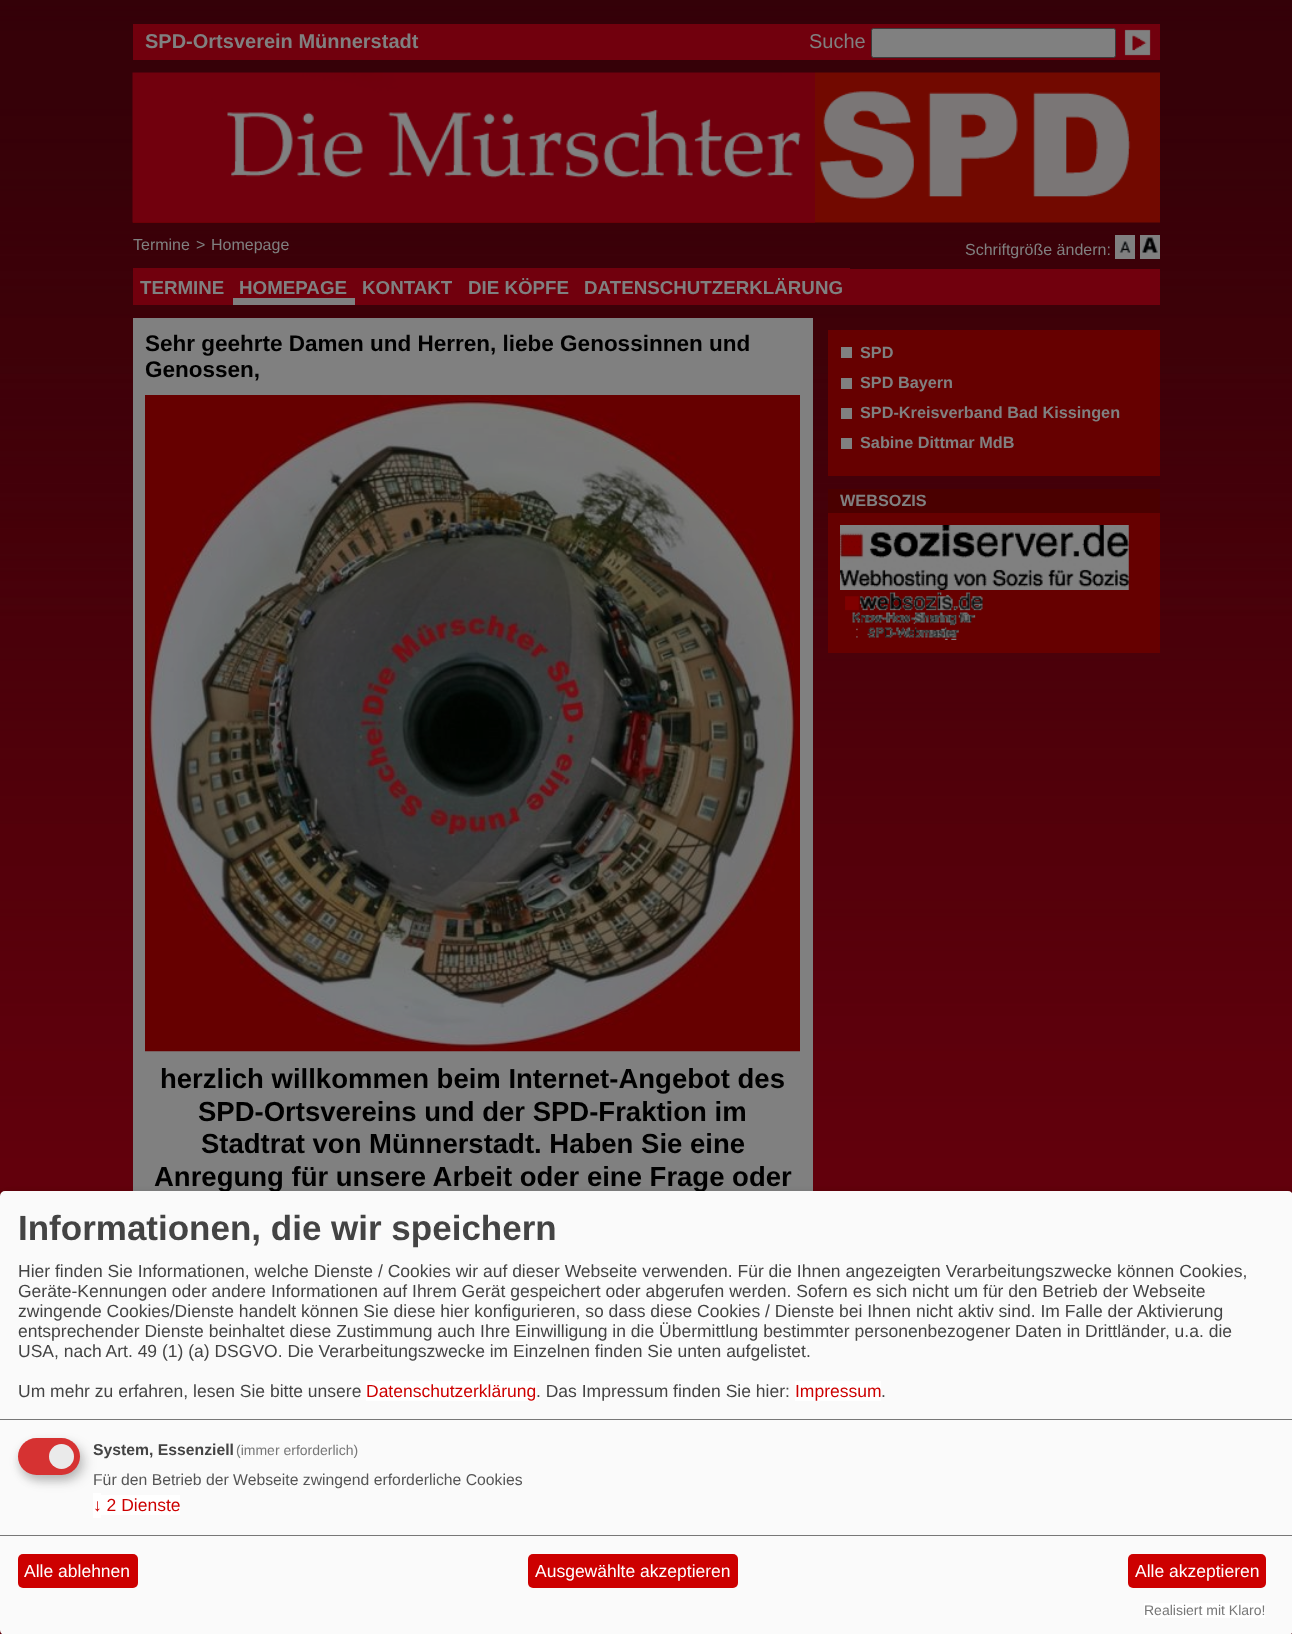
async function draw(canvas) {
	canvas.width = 1292;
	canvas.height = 1634;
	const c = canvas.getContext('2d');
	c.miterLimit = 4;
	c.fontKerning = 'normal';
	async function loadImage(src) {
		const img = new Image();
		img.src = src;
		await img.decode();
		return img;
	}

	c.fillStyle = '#71000d';
	c.fillRect(0, 0, 1292, 1634);
	c.drawImage(await loadImage('img1.png'), 0, 0, 1292, 1196);
	c.fillRect(133, 24, 1027, 36);
	c.font = 'bold 20px Liberation Sans';
	c.fillStyle = '#808080';
	c.fillText('SPD-Ortsverein Münnerstadt', 145, 48);
	c.font = '20px Liberation Sans';
	c.fillText('Suche', 809, 48);
	c.beginPath();
	c.roundRect(871.5, 28.5, 244, 29, 2);
	c.fill();
	c.strokeStyle = '#3b3b3b';
	c.stroke();
	c.drawImage(await loadImage('img2.png'), 1124, 29, 27, 27);
	c.fillStyle = '#600';
	c.fillRect(133, 222, 682, 1);
	c.drawImage(await loadImage('img3.png'), 132, 72, 683, 151);
	c.drawImage(await loadImage('img4.png'), 815, 72, 345, 151);
	c.font = '16px Liberation Sans';
	c.fillStyle = '#808080';
	for (const [text, x, y] of [
		['Termine', 133, 250],
		['>', 196, 250],
		['Homepage', 211, 250],
		['Schriftgröße ändern:', 965, 255],
	]) {
		c.fillText(text, x, y);
	}
	c.drawImage(await loadImage('img5.png'), 1115, 235, 20, 18);
	c.drawImage(await loadImage('img6.png'), 1140, 235, 20, 18);
	for (const [x, y, w, h, color] of [
		[1115, 253, 20, 6, '#808080'],
		[1140, 253, 20, 6, '#808080'],
		[850, 269, 310, 36, '#71000d'],
		[133, 268, 100, 37, '#71000d'],
	]) {
		c.fillStyle = color;
		c.fillRect(x, y, w, h);
	}
	c.font = 'bold 18.75px Liberation Sans';
	c.fillStyle = '#808080';
	c.fillText('TERMINE', 140, 294);
	c.fillStyle = '#71000d';
	c.fillRect(233, 268, 122, 30);
	c.fillStyle = '#808080';
	c.fillText('HOMEPAGE', 239, 294);
	c.fillRect(233, 298, 122, 7);
	c.fillStyle = '#71000d';
	c.fillRect(355, 268, 495, 37);
	c.fillStyle = '#808080';
	for (const [text, x, y] of [
		['KONTAKT', 362, 294],
		['DIE KÖPFE', 468, 294],
		['DATENSCHUTZERKLÄRUNG', 584, 294],
	]) {
		c.fillText(text, x, y);
	}
	c.fillRect(133, 318, 680, 873);
	c.font = 'bold 22.5px Liberation Sans';
	c.fillStyle = '#000';
	c.fillText('Sehr geehrte Damen und Herren, liebe Genossinnen und', 145, 351);
	c.fillText('Genossen,', 145, 377);
	c.drawImage(await loadImage('img7.png'), 145, 395, 655, 657);
	c.font = 'bold 27.5px Liberation Sans';
	for (const [text, x, y] of [
		['herzlich willkommen beim Internet-Angebot des', 160, 1088],
		['SPD-Ortsvereins und der SPD-Fraktion im', 198, 1121],
		['Stadtrat von Münnerstadt. Haben Sie eine', 201, 1153],
		['Anregung für unsere Arbeit oder eine Frage oder', 154, 1186],
	]) {
		c.fillText(text, x, y);
	}
	c.fillStyle = '#600';
	c.fillRect(828, 330, 332, 146);
	c.fillStyle = '#808080';
	c.fillRect(841, 347, 11, 11);
	c.font = 'bold 16.25px Liberation Sans';
	c.fillText('SPD', 860, 358);
	c.fillRect(841, 378, 11, 11);
	c.fillText('SPD Bayern', 860, 388);
	c.fillRect(841, 408, 11, 11);
	c.fillText('SPD-Kreisverband Bad Kissingen', 860, 418);
	c.fillRect(841, 438, 11, 11);
	c.fillText('Sabine Dittmar MdB', 860, 448);
	c.fillStyle = '#4a0000';
	c.fillRect(828, 489, 332, 24);
	c.fillStyle = '#808080';
	c.fillText('WEBSOZIS', 840, 506);
	c.fillStyle = '#600';
	c.fillRect(828, 513, 332, 140);
	c.drawImage(await loadImage('img8.png'), 840, 525, 289, 65);
	c.drawImage(await loadImage('img9.png'), 845, 592, 138, 48);
	c.fillStyle = '#00000030';
	c.filter = 'blur(6px)';
	c.beginPath();
	c.roundRect(6, 1198, 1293, 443, 5);
	c.fill();
	c.filter = 'none';
	c.fillStyle = '#00000033';
	c.filter = 'blur(4px)';
	c.beginPath();
	c.roundRect(0, 1196, 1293, 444, 5);
	c.fill();
	c.filter = 'none';
	c.fillStyle = '#fafafa';
	c.beginPath();
	c.roundRect(0, 1191, 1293, 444, 5);
	c.fill();
	c.fillStyle = '#777';
	c.fillRect(0, 1419, 1292, 1);
	c.font = 'bold 35px Liberation Sans';
	c.fillStyle = '#444';
	c.fillText('Informationen, die wir speichern', 18, 1240);
	c.font = '17.5px Liberation Sans';
	for (const [text, x, y] of [
		['Hier finden Sie Informationen, welche Dienste / Cookies wir auf dieser Webseite verwenden. Für die Ihnen angezeigten Verarbeitungszwecke können Cookies,', 18, 1277],
		['Geräte-Kennungen oder andere Informationen auf Ihrem Gerät gespeichert oder abgerufen werden. Sofern es sich nicht um für den Betrieb der Webseite', 18, 1297],
		['zwingende Cookies/Dienste handelt können Sie diese hier konfigurieren, so dass diese Cookies / Dienste bei Ihnen nicht aktiv sind. Im Falle der Aktivierung', 18, 1317],
		['entsprechender Dienste beinhaltet diese Zustimmung auch Ihre Einwilligung in die Übermittlung bestimmter personenbezogener Daten in Drittländer, u.a. die', 18, 1337],
		['USA, nach Art. 49 (1) (a) DSGVO. Die Verarbeitungszwecke im Einzelnen finden Sie unten aufgelistet.', 18, 1357],
		['Um mehr zu erfahren, lesen Sie bitte unsere', 18, 1397],
	]) {
		c.fillText(text, x, y);
	}
	c.fillStyle = '#fff';
	c.fillRect(366, 1381, 170, 20);
	c.fillStyle = '#cd0000';
	c.fillText('Datenschutzerklärung', 366, 1397);
	c.fillStyle = '#444';
	c.fillText('. Das Impressum finden Sie hier:', 536, 1397);
	c.fillStyle = '#fff';
	c.fillRect(795, 1381, 86, 20);
	c.fillStyle = '#cd0000';
	c.fillText('Impressum', 795, 1397);
	c.fillStyle = '#444';
	c.fillText('.', 881, 1397);
	c.fillStyle = '#fff';
	c.fillRect(93, 1493, 8, 25);
	c.fillRect(101, 1495, 79, 20);
	c.fillStyle = '#00000026';
	c.filter = 'blur(6px)';
	c.beginPath();
	c.roundRect(24, 1444, 62, 37, 18.5);
	c.fill();
	c.filter = 'none';
	c.fillStyle = '#32323233';
	c.filter = 'blur(4px)';
	c.beginPath();
	c.roundRect(18, 1443, 62, 37, 18.5);
	c.fill();
	c.filter = 'none';
	c.fillStyle = '#d63232';
	c.beginPath();
	c.roundRect(18, 1438, 62, 37, 18.5);
	c.fill();
	c.fillStyle = '#eaeaea';
	c.beginPath();
	c.arc(61.5, 1456.5, 12.5, 0, 2 * Math.PI);
	c.fill();
	c.font = 'bold 15.75px Liberation Sans';
	c.fillStyle = '#444';
	c.fillText('System, Essenziell', 93, 1455);
	c.font = '14px Liberation Sans';
	c.fillStyle = '#777';
	c.fillText('(immer erforderlich)', 236, 1455);
	c.font = '15.75px Liberation Sans';
	c.fillStyle = '#555';
	c.fillText('Für den Betrieb der Webseite zwingend erforderliche Cookies', 93, 1485);
	c.font = '17.5px Liberation Sans';
	c.fillStyle = '#cd0000';
	c.fillText('↓ 2 Dienste', 93, 1511);
	c.fillStyle = '#777';
	c.fillRect(0, 1535, 1292, 1);
	c.fillStyle = '#cd0000';
	c.beginPath();
	c.roundRect(18, 1554, 120, 34, 5);
	c.fill();
	c.fillStyle = '#fff';
	c.fillText('Alle ablehnen', 24, 1577);
	c.fillStyle = '#cd0000';
	c.beginPath();
	c.roundRect(528, 1554, 210, 34, 5);
	c.fill();
	c.fillStyle = '#fff';
	c.fillText('Ausgewählte akzeptieren', 535, 1577);
	c.fillStyle = '#cd0000';
	c.beginPath();
	c.roundRect(1128, 1554, 138, 34, 5);
	c.fill();
	c.fillStyle = '#fff';
	c.fillText('Alle akzeptieren', 1135, 1577);
	c.fillRect(1144, 1603, 121, 15);
	c.font = '14px Liberation Sans';
	c.fillStyle = '#777';
	c.fillText('Realisiert mit Klaro!', 1144, 1615);
}

draw(document.querySelector('canvas'));
